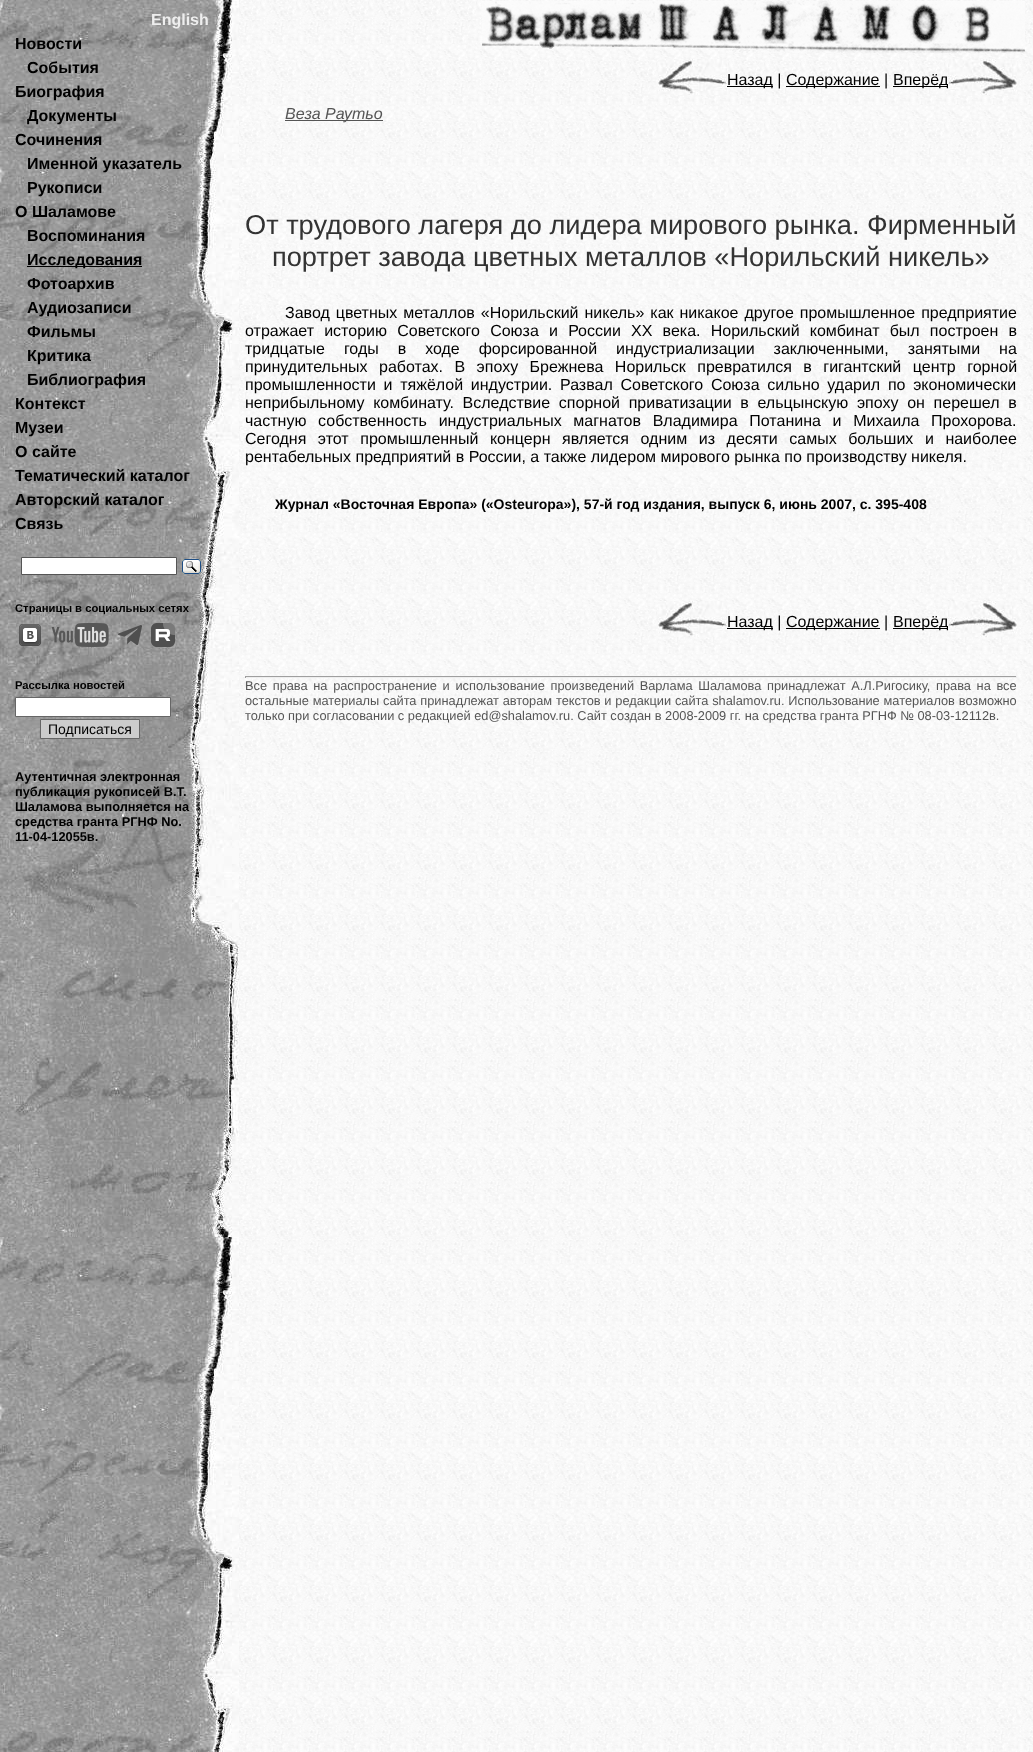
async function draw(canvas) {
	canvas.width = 1033;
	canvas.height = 1752;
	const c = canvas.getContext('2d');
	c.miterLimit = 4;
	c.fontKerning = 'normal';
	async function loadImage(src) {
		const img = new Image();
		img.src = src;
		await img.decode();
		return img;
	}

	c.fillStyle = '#fff';
	c.fillRect(0, 0, 1033, 1752);
	c.drawImage(await loadImage('img1.png'), 239, 0, 794, 1752);
	c.drawImage(await loadImage('img2.png'), 0, 0, 239, 1752);
	c.font = 'bold 16px Liberation Sans';
	c.fillStyle = '#eee';
	c.fillText('English', 151, 25);
	c.fillStyle = '#000';
	for (const [text, x, y] of [
		['Новости', 15, 49],
		['События', 27, 73],
		['Биография', 15, 97],
		['Документы', 27, 121],
		['Сочинения', 15, 145],
		['Именной указатель', 27, 169],
		['Рукописи', 27, 193],
		['О Шаламове', 15, 217],
		['Воспоминания', 27, 241],
	]) {
		c.fillText(text, x, y);
	}
	c.fillRect(27, 266, 115, 1);
	for (const [text, x, y] of [
		['Исследования', 27, 265],
		['Фотоархив', 27, 289],
		['Аудиозаписи', 27, 313],
		['Фильмы', 27, 337],
		['Критика', 27, 361],
		['Библиография', 27, 385],
		['Контекст', 15, 409],
		['Музеи', 15, 433],
		['О сайте', 15, 457],
		['Тематический каталог', 15, 481],
		['Авторский каталог', 15, 505],
		['Связь', 15, 529],
	]) {
		c.fillText(text, x, y);
	}
	c.fillStyle = '#fff';
	c.beginPath();
	c.rect(21.5, 557.5, 155, 17);
	c.fill();
	c.strokeStyle = '#555';
	c.stroke();
	c.drawImage(await loadImage('img3.png'), 182, 559, 19, 15);
	c.font = 'bold 11.25px Liberation Sans';
	c.fillStyle = '#000';
	c.fillText('Страницы в социальных сетях', 15, 612);
	c.drawImage(await loadImage('img4.png'), 19, 624, 22, 22);
	c.drawImage(await loadImage('img5.png'), 51, 623, 58, 24);
	c.drawImage(await loadImage('img6.png'), 118, 625, 24, 20);
	c.drawImage(await loadImage('img7.png'), 151, 623, 24, 24);
	c.fillText('Рассылка новостей', 15, 689);
	c.fillStyle = '#fff';
	c.beginPath();
	c.rect(15.5, 697.5, 155, 19);
	c.fill();
	c.strokeStyle = '#666';
	c.stroke();
	c.fillStyle = '#ccc';
	c.beginPath();
	c.rect(40.5, 719.5, 99, 19);
	c.fill();
	c.stroke();
	c.font = '14px Liberation Sans';
	c.fillStyle = '#000';
	c.fillText('Подписаться', 48, 734);
	c.font = 'bold 12.8px Liberation Sans';
	for (const [text, x, y] of [
		['Аутентичная электронная', 15, 781],
		['публикация рукописей В.Т.', 15, 796],
		['Шаламова выполняется на', 15, 811],
		['средства гранта РГНФ No.', 15, 826],
		['11-04-12055в.', 15, 841],
	]) {
		c.fillText(text, x, y);
	}
	c.drawImage(await loadImage('img8.png'), 482, 1, 543, 52);
	c.drawImage(await loadImage('img9.png'), 658, 59, 69, 36);
	c.fillRect(727, 86, 46, 1);
	c.font = '16px Liberation Sans';
	c.fillText('Назад |', 727, 85);
	c.fillRect(786, 86, 94, 1);
	c.fillText('Содержание |', 786, 85);
	c.fillRect(893, 86, 55, 1);
	c.fillText('Вперёд', 893, 85);
	c.drawImage(await loadImage('img10.png'), 948, 59, 69, 36);
	c.fillStyle = '#555';
	c.fillRect(285, 120, 98, 1);
	c.font = 'italic 16px Liberation Sans';
	c.fillText('Веза Раутьо', 285, 119);
	c.font = '27.2px Liberation Sans';
	c.fillStyle = '#333';
	c.fillText('От трудового лагеря до лидера мирового рынка. Фирменный', 245, 234);
	c.fillText('портрет завода цветных металлов «Норильский никель»', 272, 266);
	c.wordSpacing = '1.5px';
	c.font = '16px Liberation Sans';
	c.fillStyle = '#000';
	c.fillText('Завод цветных металлов «Норильский никель» как никакое другое промышленное предприятие', 285, 318);
	c.wordSpacing = '5.75px';
	c.fillText('отражает историю Советского Союза и России ХХ века. Норильский комбинат был построен в', 245, 336);
	c.wordSpacing = '14.5px';
	c.fillText('тридцатые годы в ходе форсированной индустриализации заключенными, занятыми на', 245, 354);
	c.wordSpacing = '7px';
	c.fillText('принудительных работах. В эпоху Брежнева Норильск превратился в гигантский центр горной', 245, 372);
	c.wordSpacing = '3.25px';
	c.fillText('промышленности и тяжёлой индустрии. Развал Советского Союза сильно ударил по экономически', 245, 390);
	c.wordSpacing = '4.25px';
	c.fillText('неприбыльному комбинату. Вследствие спорной приватизации в ельцынскую эпоху он перешел в', 245, 408);
	c.wordSpacing = '7.25px';
	c.fillText('частную собственность индустриальных магнатов Владимира Потанина и Михаила Прохорова.', 245, 426);
	c.wordSpacing = '7.1px';
	c.fillText('Сегодня этот промышленный концерн является одним из десяти самых больших и наиболее', 245, 444);
	c.wordSpacing = '0px';
	c.fillText('рентабельных предприятий в России, а также лидером мирового рынка по производству никеля.', 245, 462);
	c.font = 'bold 14px Liberation Sans';
	c.fillText('Журнал «Восточная Европа» («Osteuropa»), 57-й год издания, выпуск 6, июнь 2007, с. 395-408', 275, 509);
	c.drawImage(await loadImage('img9.png'), 658, 601, 69, 36);
	c.fillRect(727, 628, 46, 1);
	c.font = '16px Liberation Sans';
	c.fillText('Назад |', 727, 627);
	c.fillRect(786, 628, 94, 1);
	c.fillText('Содержание |', 786, 627);
	c.fillRect(893, 628, 55, 1);
	c.fillText('Вперёд', 893, 627);
	c.drawImage(await loadImage('img10.png'), 948, 601, 69, 36);
	for (const [x, y, w, h, color] of [
		[245, 676, 772, 1, '#9f9f9f'],
		[1016, 676, 1, 2, '#eee'],
		[245, 677, 772, 1, '#eee'],
		[245, 676, 1, 2, '#9f9f9f'],
	]) {
		c.fillStyle = color;
		c.fillRect(x, y, w, h);
	}
	c.wordSpacing = '2.1px';
	c.font = '12.8px Liberation Sans';
	c.fillStyle = '#555';
	c.fillText('Все права на распространение и использование произведений Варлама Шаламова принадлежат А.Л.Ригосику, права на все', 245, 690);
	c.wordSpacing = '0.25px';
	c.fillText('остальные материалы сайта принадлежат авторам текстов и редакции сайта shalamov.ru. Использование материалов возможно', 245, 705);
	c.wordSpacing = '0px';
	c.fillText('только при согласовании с редакцией ed@shalamov.ru. Сайт создан в 2008-2009 гг. на средства гранта РГНФ № 08-03-12112в.', 245, 720);
}

draw(document.querySelector('canvas'));
